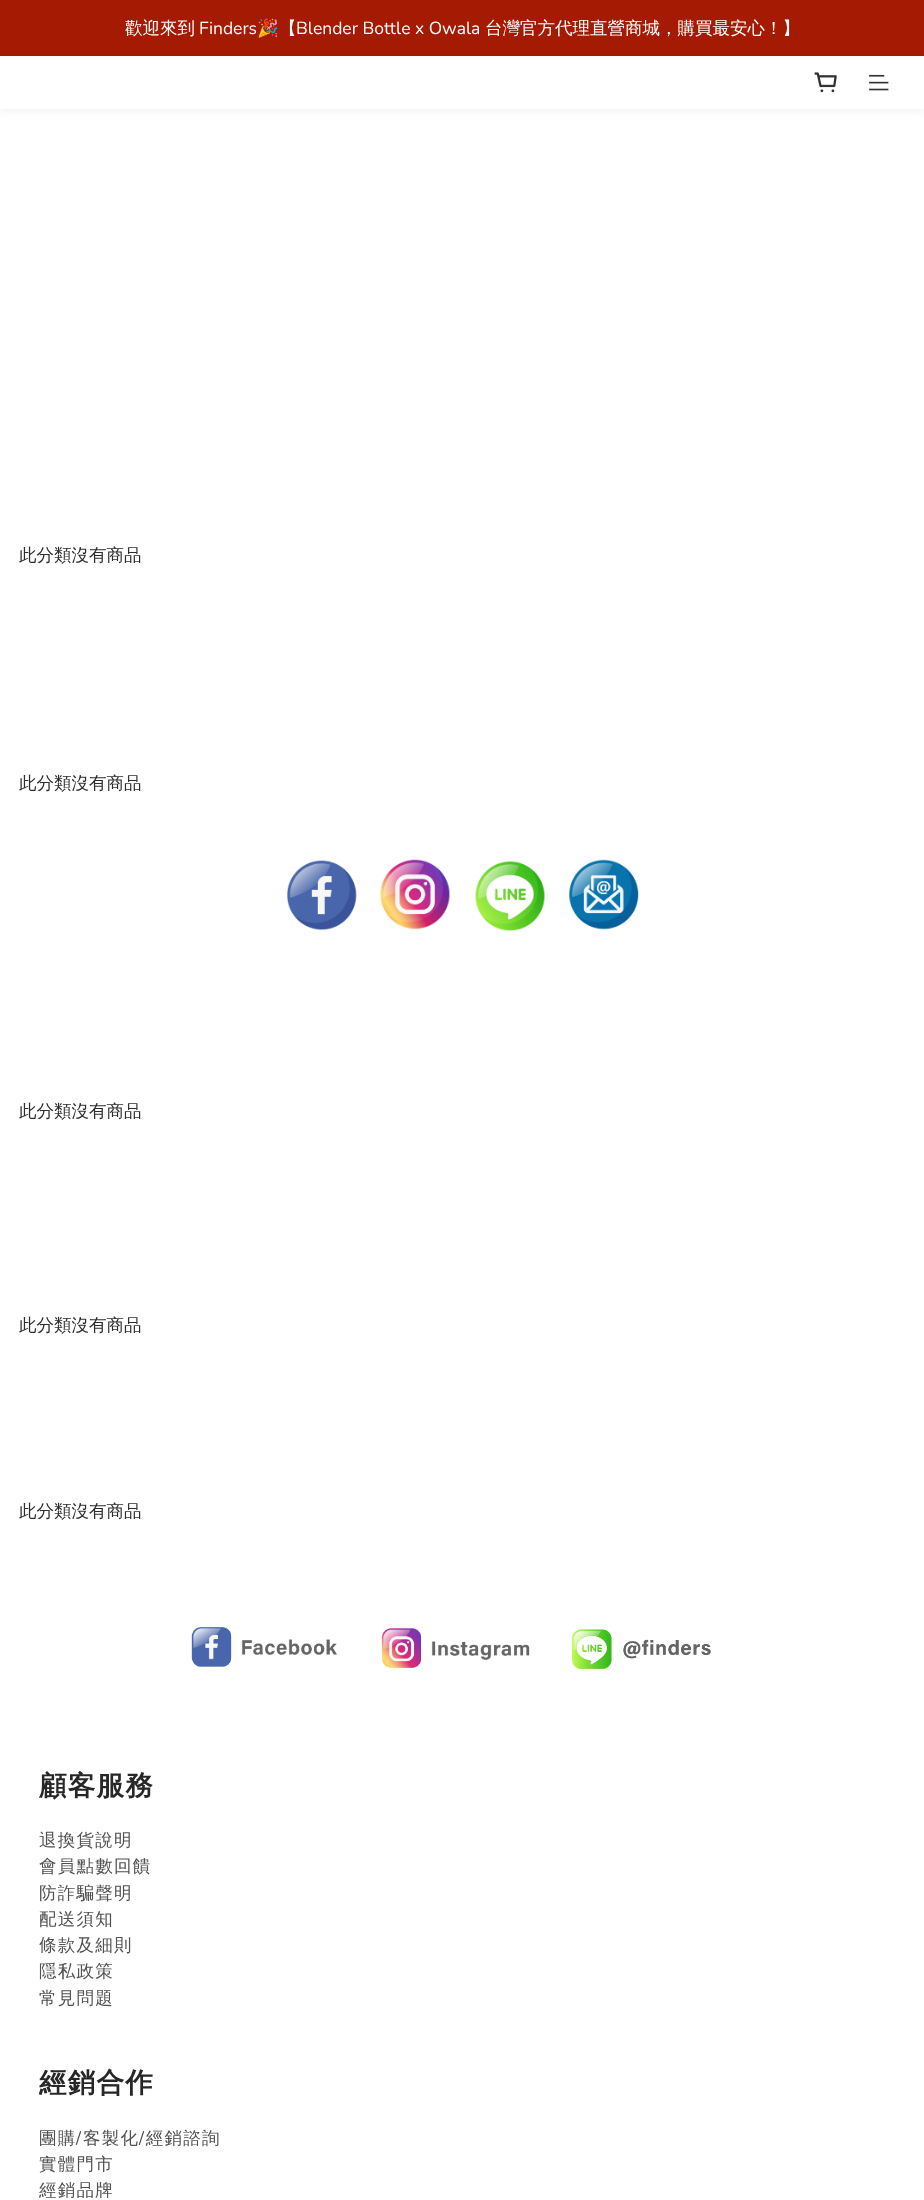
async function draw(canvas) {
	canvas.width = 924;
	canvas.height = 2200;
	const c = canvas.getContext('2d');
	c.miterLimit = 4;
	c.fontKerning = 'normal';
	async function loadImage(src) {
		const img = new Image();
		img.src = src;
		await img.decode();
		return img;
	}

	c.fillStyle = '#fff';
	c.fillRect(0, 0, 924, 2200);
	c.fillStyle = '#a51a02';
	c.fillRect(0, 0, 924, 56);
	c.font = '500 17.5px WenQuanYi Zen Hei';
	c.fillStyle = '#fff';
	c.fillText('歡迎來到', 125, 34);
	c.font = '17.5px Nunito';
	c.fillText('Finders', 199, 34);
	c.font = '17.5px Noto Color Emoji';
	c.fillText('🎉', 257, 34);
	c.font = '500 17.5px WenQuanYi Zen Hei';
	c.fillText('【', 279, 34);
	c.font = '17.5px Nunito';
	c.fillText('Blender Bottle x Owala', 296, 34);
	c.font = '500 17.5px WenQuanYi Zen Hei';
	c.fillText('台灣官方代理直營商城，購買最安心！】', 485, 34);
	c.fillStyle = '#0000000f';
	c.filter = 'blur(4px)';
	c.beginPath();
	c.rect(0, 59, 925, 52);
	c.fill();
	c.filter = 'none';
	c.fillStyle = '#fff';
	c.fillRect(0, 56, 924, 53);
	c.drawImage(await loadImage('img1.png'), 814, 72, 23, 21);
	c.drawImage(await loadImage('img2.png'), 869, 74, 20, 17);
	c.fillStyle = '#2d2d2d';
	c.fillText('此分類沒有商品', 19, 561);
	c.fillText('此分類沒有商品', 19, 789);
	c.drawImage(await loadImage('img3.png'), 286, 860, 71, 71);
	c.drawImage(await loadImage('img4.png'), 380, 859, 70, 71);
	c.drawImage(await loadImage('img5.png'), 475, 861, 70, 70);
	c.drawImage(await loadImage('img6.png'), 568, 859, 71, 71);
	for (const [text, x, y] of [
		['此分類沒有商品', 19, 1117],
		['此分類沒有商品', 19, 1331],
		['此分類沒有商品', 19, 1517],
	]) {
		c.fillText(text, x, y);
	}
	c.drawImage(await loadImage('img7.png'), 191, 1627, 146, 40);
	c.drawImage(await loadImage('img8.png'), 381, 1628, 149, 40);
	c.drawImage(await loadImage('img9.png'), 572, 1629, 139, 40);
	c.letterSpacing = '1.25px';
	c.font = 'bold 27.5px WenQuanYi Zen Hei';
	c.fillStyle = '#272727';
	c.fillText('顧客服務', 39, 1795);
	c.font = '500 17.5px WenQuanYi Zen Hei';
	c.fillStyle = '#515151';
	for (const [text, x, y] of [
		['退換貨說明', 39, 1846],
		['會員點數回饋', 39, 1872],
		['防詐騙聲明', 39, 1899],
		['配送須知', 39, 1925],
		['條款及細則', 39, 1951],
		['隱私政策', 39, 1977],
		['常見問題', 39, 2004],
	]) {
		c.fillText(text, x, y);
	}
	c.font = 'bold 27.5px WenQuanYi Zen Hei';
	c.fillStyle = '#272727';
	c.fillText('經銷合作', 39, 2092);
	c.font = '500 17.5px WenQuanYi Zen Hei';
	c.fillStyle = '#515151';
	c.fillText('團購 客製化 經銷諮詢', 39, 2144);
	c.font = '17.5px Nunito';
	c.fillText('/', 76, 2144);
	c.fillText('/', 139, 2144);
	c.font = '500 17.5px WenQuanYi Zen Hei';
	c.fillText('實體門市', 39, 2170);
	c.fillText('經銷品牌', 39, 2196);
}

draw(document.querySelector('canvas'));
